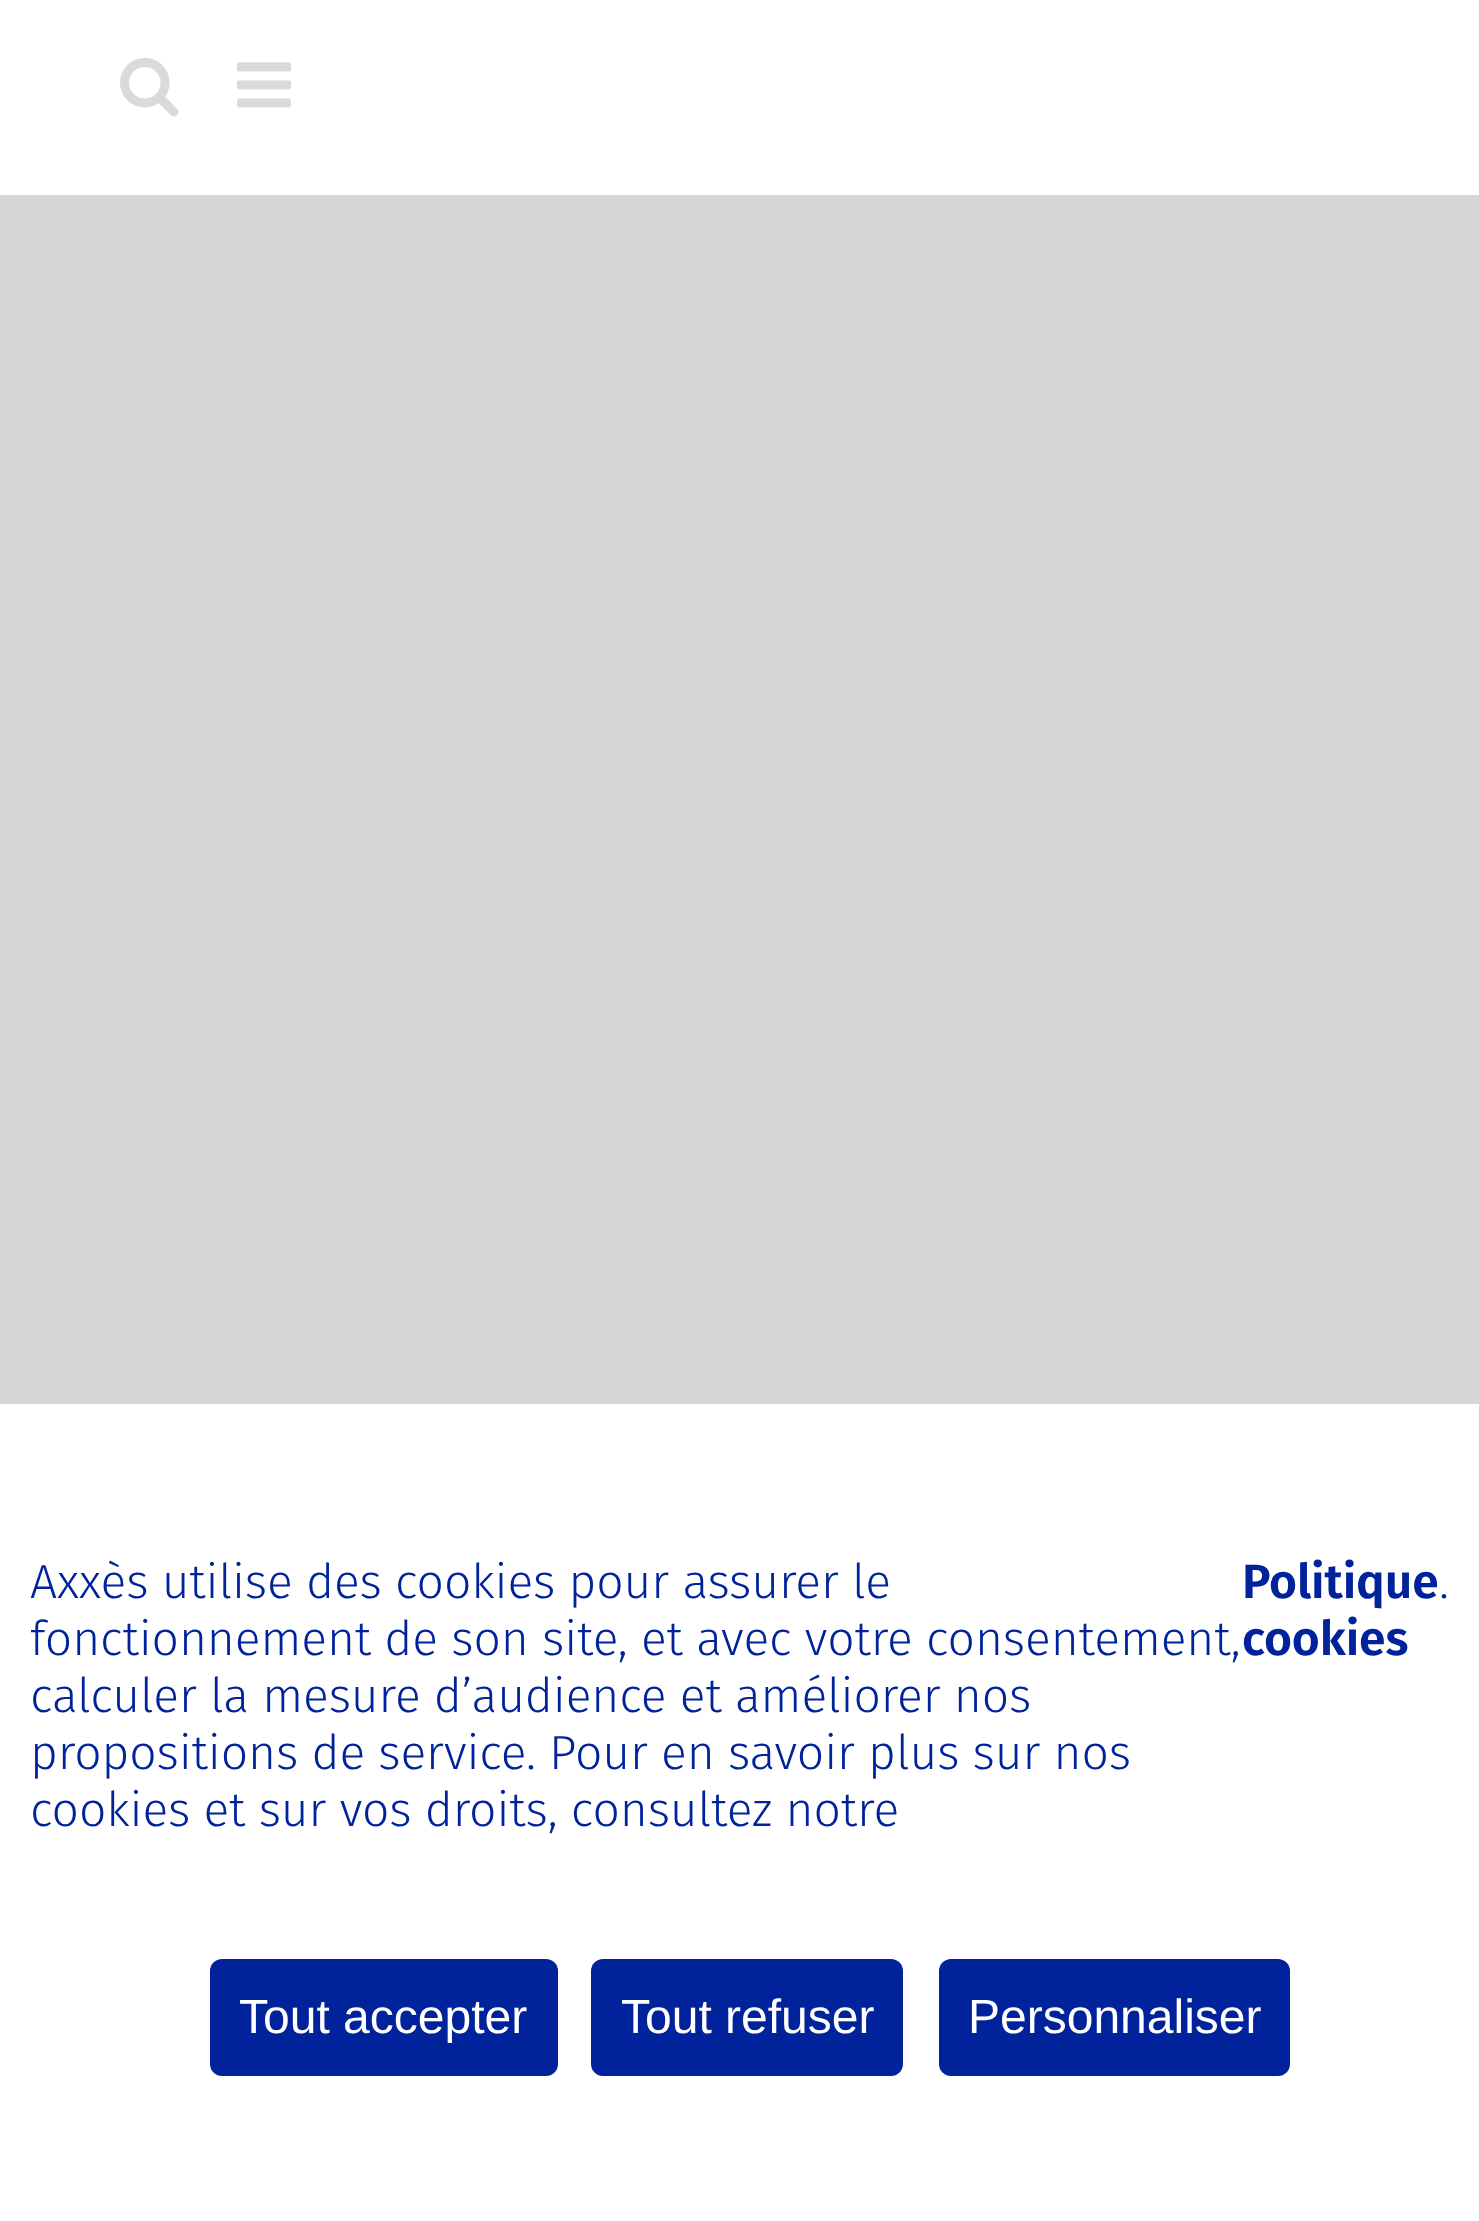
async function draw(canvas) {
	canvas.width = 1479;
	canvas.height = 2221;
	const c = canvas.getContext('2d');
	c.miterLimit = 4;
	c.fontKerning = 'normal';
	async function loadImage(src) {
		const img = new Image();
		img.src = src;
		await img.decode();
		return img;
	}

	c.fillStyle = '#d7d6d6';
	c.fillRect(0, 0, 1479, 2221);
	c.fillStyle = '#fff';
	c.fillRect(0, 0, 1479, 195);
	c.drawImage(await loadImage('img1.png'), 120, 58, 59, 59);
	c.drawImage(await loadImage('img2.png'), 237, 62, 54, 46);
	c.fillRect(0, 1404, 1479, 817);
	c.letterSpacing = '-0.1px';
	c.font = '300 48px Fira Sans';
	c.fillStyle = '#00239c';
	c.fillText('Axxès utilise des cookies pour assurer le', 30, 1598);
	c.font = '600 48px Fira Sans';
	c.fillText('Politique', 1242, 1598);
	c.fillText('cookies', 1242, 1655);
	c.font = '300 48px Fira Sans';
	for (const [text, x, y] of [
		['.', 1439, 1598],
		['fonctionnement de son site, et avec votre consentement,', 30, 1655],
		['calculer la mesure d’audience et améliorer nos', 30, 1712],
		['propositions de service. Pour en savoir plus sur nos', 30, 1769],
		['cookies et sur vos droits, consultez notre', 30, 1826],
	]) {
		c.fillText(text, x, y);
	}
	c.beginPath();
	c.roundRect(210, 1959, 348, 117, 12);
	c.fill();
	c.letterSpacing = '0px';
	c.font = '48px Liberation Sans';
	c.fillStyle = '#fff';
	c.fillText('Tout accepter', 239, 2033);
	c.fillStyle = '#00239c';
	c.beginPath();
	c.roundRect(591, 1959, 312, 117, 12);
	c.fill();
	c.fillStyle = '#fff';
	c.fillText('Tout refuser', 621, 2033);
	c.fillStyle = '#00239c';
	c.beginPath();
	c.roundRect(939, 1959, 351, 117, 12);
	c.fill();
	c.fillStyle = '#fff';
	c.fillText('Personnaliser', 968, 2033);
}

draw(document.querySelector('canvas'));
